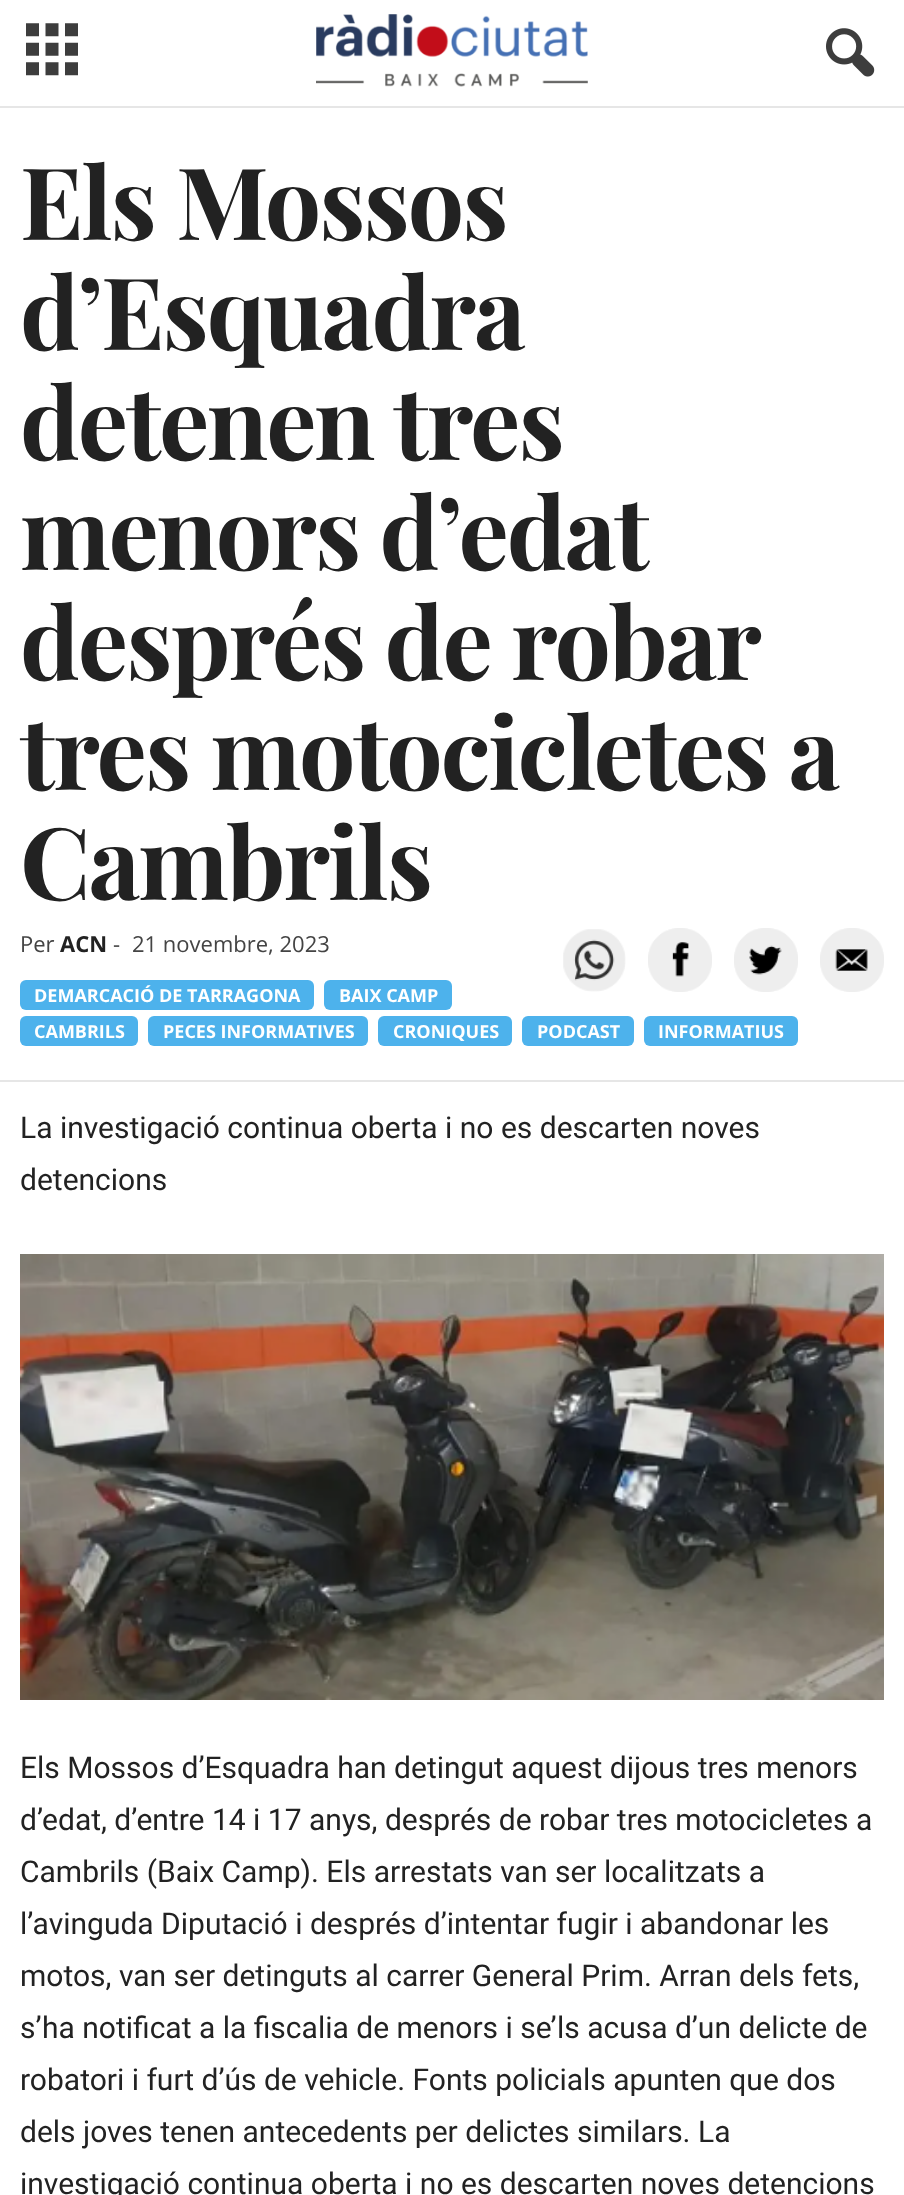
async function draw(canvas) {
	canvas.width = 904;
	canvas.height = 2195;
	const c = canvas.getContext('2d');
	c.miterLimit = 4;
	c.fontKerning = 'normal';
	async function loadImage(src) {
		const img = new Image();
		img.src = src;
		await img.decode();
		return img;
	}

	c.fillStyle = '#fff';
	c.fillRect(0, 0, 904, 2195);
	c.fillStyle = '#e6e6e6';
	c.fillRect(0, 106, 904, 2);
	c.drawImage(await loadImage('img1.png'), 26, 23, 52, 53);
	c.drawImage(await loadImage('img2.png'), 316, 14, 272, 73);
	c.drawImage(await loadImage('img3.png'), 826, 28, 49, 49);
	c.letterSpacing = '-2px';
	c.font = 'bold 100px Playfair Display';
	c.fillStyle = '#222';
	for (const [text, x, y] of [
		['Els Mossos', 20, 240],
		['d’Esquadra', 20, 350],
		['detenen tres', 20, 460],
	]) {
		c.fillText(text, x, y);
	}
	c.wordSpacing = '-1px';
	c.fillText('menors d’edat', 20, 570);
	c.fillText('després de robar', 20, 680);
	c.wordSpacing = '0px';
	c.fillText('tres motocicletes a', 20, 790);
	c.fillText('Cambrils', 20, 900);
	c.letterSpacing = '0px';
	c.font = '22px Open Sans';
	c.fillStyle = '#444';
	c.fillText('Per', 20, 952);
	c.font = 'bold 22px Open Sans';
	c.fillStyle = '#222';
	c.fillText('ACN', 60, 952);
	c.font = '22px Open Sans';
	c.fillStyle = '#444';
	c.fillText('-', 113, 952);
	c.fillText('21 novembre, 2023', 132, 952);
	c.drawImage(await loadImage('img4.png'), 563, 929, 63, 63);
	c.drawImage(await loadImage('img5.png'), 648, 928, 64, 64);
	c.drawImage(await loadImage('img6.png'), 734, 928, 64, 64);
	c.drawImage(await loadImage('img7.png'), 820, 928, 64, 64);
	c.fillStyle = '#4db2ec';
	c.beginPath();
	c.roundRect(20, 980, 294, 30, 6);
	c.fill();
	c.font = 'bold 18px Open Sans';
	c.fillStyle = '#fff';
	c.fillText('DEMARCACIÓ DE TARRAGONA', 34, 1002);
	c.fillStyle = '#4db2ec';
	c.beginPath();
	c.roundRect(324, 980, 128, 30, 6);
	c.fill();
	c.fillStyle = '#fff';
	c.fillText('BAIX CAMP', 339, 1002);
	c.fillStyle = '#4db2ec';
	c.beginPath();
	c.roundRect(20, 1016, 118, 30, 6);
	c.fill();
	c.fillStyle = '#fff';
	c.fillText('CAMBRILS', 34, 1038);
	c.fillStyle = '#4db2ec';
	c.beginPath();
	c.roundRect(148, 1016, 220, 30, 6);
	c.fill();
	c.fillStyle = '#fff';
	c.fillText('PECES INFORMATIVES', 163, 1038);
	c.fillStyle = '#4db2ec';
	c.beginPath();
	c.roundRect(378, 1016, 134, 30, 6);
	c.fill();
	c.fillStyle = '#fff';
	c.fillText('CRONIQUES', 393, 1038);
	c.fillStyle = '#4db2ec';
	c.beginPath();
	c.roundRect(522, 1016, 112, 30, 6);
	c.fill();
	c.fillStyle = '#fff';
	c.fillText('PODCAST', 537, 1038);
	c.fillStyle = '#4db2ec';
	c.beginPath();
	c.roundRect(644, 1016, 154, 30, 6);
	c.fill();
	c.fillStyle = '#fff';
	c.fillText('INFORMATIUS', 658, 1038);
	c.fillStyle = '#e6e6e6';
	c.fillRect(0, 1080, 904, 2);
	c.font = '30px Roboto';
	c.fillStyle = '#222';
	c.fillText('La investigació continua oberta i no es descarten noves', 20, 1138);
	c.fillText('detencions', 20, 1190);
	c.drawImage(await loadImage('img8.png'), 20, 1254, 864, 446);
	for (const [text, x, y] of [
		['Els Mossos d’Esquadra han detingut aquest dijous tres menors', 20, 1778],
		['d’edat, d’entre 14 i 17 anys, després de robar tres motocicletes a', 20, 1830],
		['Cambrils (Baix Camp). Els arrestats van ser localitzats a', 20, 1882],
		['l’avinguda Diputació i després d’intentar fugir i abandonar les', 20, 1934],
		['motos, van ser detinguts al carrer General Prim. Arran dels fets,', 20, 1986],
		['s’ha notificat a la fiscalia de menors i se’ls acusa d’un delicte de', 20, 2038],
		['robatori i furt d’ús de vehicle. Fonts policials apunten que dos', 20, 2090],
		['dels joves tenen antecedents per delictes similars. La', 20, 2142],
		['investigació continua oberta i no es descarten noves detencions', 20, 2194],
	]) {
		c.fillText(text, x, y);
	}
}

draw(document.querySelector('canvas'));
